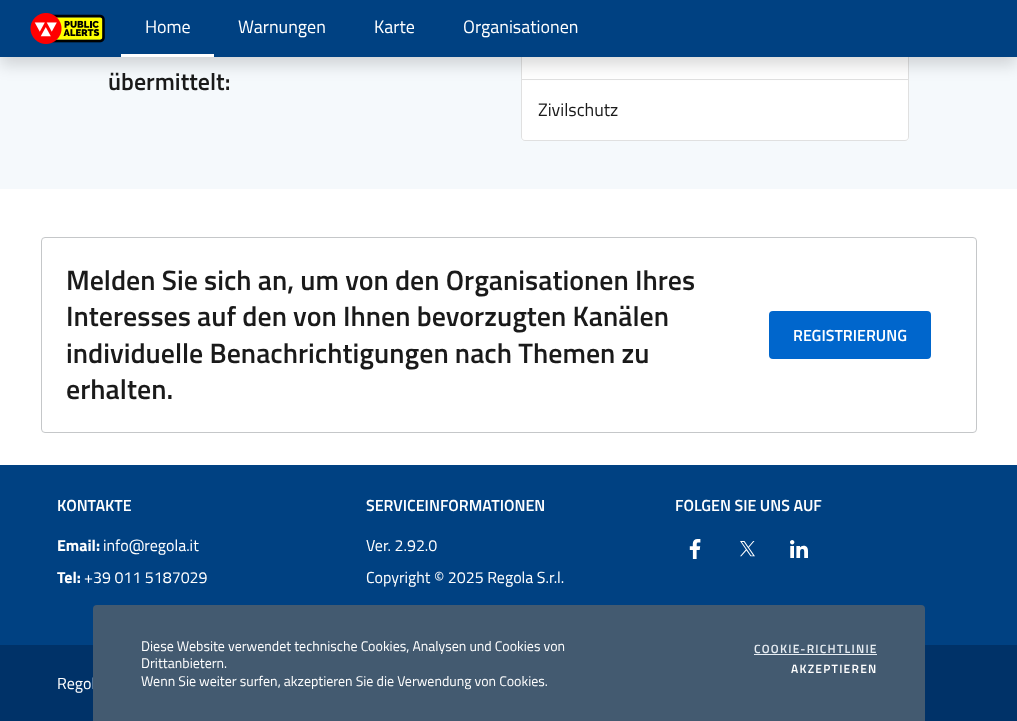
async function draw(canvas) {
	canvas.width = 1017;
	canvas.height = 721;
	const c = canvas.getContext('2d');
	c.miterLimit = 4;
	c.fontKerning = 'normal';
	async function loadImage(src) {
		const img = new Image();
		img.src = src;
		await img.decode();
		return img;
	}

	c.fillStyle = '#fff';
	c.fillRect(0, 0, 1017, 721);
	c.fillStyle = '#f5f9fc';
	c.fillRect(0, 57, 1017, 132);
	c.fillStyle = '#fff';
	c.fillRect(521, 57, 388, 23);
	c.fillStyle = '#dfdfdf';
	c.beginPath();
	c.moveTo(909, 19);
	c.lineTo(909, 80);
	c.lineTo(908, 79);
	c.lineTo(908, 19);
	c.closePath();
	c.fill();
	c.fillStyle = '#0000001f';
	c.beginPath();
	c.moveTo(909, 80);
	c.lineTo(521, 80);
	c.lineTo(522, 79);
	c.lineTo(908, 79);
	c.closePath();
	c.fill();
	c.beginPath();
	c.moveTo(521, 80);
	c.lineTo(521, 19);
	c.lineTo(522, 19);
	c.lineTo(522, 79);
	c.closePath();
	c.fill();
	c.fillStyle = '#fff';
	c.beginPath();
	c.roundRect(521, 80, 388, 61, [0, 0, 4, 4]);
	c.fill();
	c.fillStyle = '#0000001f';
	c.beginPath();
	c.moveTo(521, 80);
	c.lineTo(909, 80);
	c.lineTo(909, 137);
	c.bezierCurveTo(909, 139, 907, 141, 905, 141);
	c.lineTo(525, 141);
	c.bezierCurveTo(523, 141, 521, 139, 521, 137);
	c.closePath();
	c.moveTo(522, 80);
	c.lineTo(908, 80);
	c.lineTo(908, 137);
	c.bezierCurveTo(908, 139, 907, 140, 905, 140);
	c.lineTo(525, 140);
	c.bezierCurveTo(523, 140, 522, 139, 522, 137);
	c.closePath();
	c.fill('evenodd');
	c.fillStyle = '#00000026';
	c.filter = 'blur(8px)';
	c.beginPath();
	c.rect(0, 8, 1017, 57);
	c.fill();
	c.filter = 'none';
	c.fillStyle = '#004182';
	c.fillRect(0, 0, 1017, 57);
	c.drawImage(await loadImage('img1.png'), 30, 13, 75, 31);
	c.fillStyle = '#fff';
	c.fillRect(121, 54, 93, 3);
	c.font = '18px Titillium Web';
	for (const [text, x, y] of [
		['Home', 145, 33],
		['Warnungen', 238, 33],
		['Karte', 374, 33],
		['Organisationen', 463, 33],
	]) {
		c.fillText(text, x, y);
	}
	c.font = '600 24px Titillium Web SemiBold';
	c.fillStyle = '#1a1a1a';
	c.fillText('übermittelt:', 108, 90);
	c.font = '18px Titillium Web';
	c.fillText('Zivilschutz', 538, 116);
	c.beginPath();
	c.roundRect(41.5, 237.5, 935, 195, 3.5);
	c.strokeStyle = '#c5c7c9';
	c.stroke();
	c.font = '600 28px Titillium Web SemiBold';
	for (const [text, x, y] of [
		['Melden Sie sich an, um von den Organisationen Ihres', 66, 290],
		['Interesses auf den von Ihnen bevorzugten Kanälen', 66, 326],
		['individuelle Benachrichtigungen nach Themen zu', 66, 363],
		['erhalten.', 66, 399],
	]) {
		c.fillText(text, x, y);
	}
	c.fillStyle = '#06c';
	c.beginPath();
	c.roundRect(769, 311, 162, 48, 4);
	c.fill();
	c.font = '600 16px Titillium Web SemiBold';
	c.fillStyle = '#fff';
	c.fillText('REGISTRIERUNG', 793, 341);
	c.fillStyle = '#004182';
	c.fillRect(0, 465, 1017, 180);
	c.fillStyle = '#fff';
	c.fillText('KONTAKTE', 57, 511);
	c.font = 'bold 16px Titillium Web';
	c.fillText('Email:', 57, 551);
	c.font = '16px Titillium Web';
	c.fillText('info@regola.it', 103, 551);
	c.font = 'bold 16px Titillium Web';
	c.fillText('Tel:', 57, 583);
	c.font = '16px Titillium Web';
	c.fillText('+39 011 5187029', 84, 583);
	c.font = '600 16px Titillium Web SemiBold';
	c.fillText('SERVICEINFORMATIONEN', 366, 511);
	c.font = '16px Titillium Web';
	c.fillText('Ver. 2.92.0', 366, 551);
	c.fillText('Copyright © 2025 Regola S.r.l.', 366, 583);
	c.font = '600 16px Titillium Web SemiBold';
	c.fillText('FOLGEN SIE UNS AUF', 675, 511);
	c.drawImage(await loadImage('img2.png'), 689, 539, 12, 20);
	c.drawImage(await loadImage('img3.png'), 740, 541, 15, 16);
	c.drawImage(await loadImage('img4.png'), 790, 540, 18, 18);
	c.fillStyle = '#003268';
	c.fillRect(0, 645, 1017, 76);
	c.font = '16px Titillium Web';
	c.fillStyle = '#fff';
	c.fillText('Regol', 57, 689);
	c.fillStyle = '#435a70';
	c.beginPath();
	c.roundRect(93, 605, 832, 116, [4, 4, 0, 0]);
	c.fill();
	c.font = '14px Titillium Web';
	c.fillStyle = '#fff';
	for (const [text, x, y] of [
		['Diese Website verwendet technische Cookies, Analysen und Cookies von', 141, 651],
		['Drittanbietern.', 141, 668],
		['Wenn Sie weiter surfen, akzeptieren Sie die Verwendung von Cookies.', 141, 686],
	]) {
		c.fillText(text, x, y);
	}
	c.letterSpacing = '1.25px';
	c.font = '600 12px Titillium Web SemiBold';
	c.fillStyle = '#e6ecf2';
	c.fillText('COOKIE-RICHTLINIE', 754, 653);
	c.fillRect(754, 654, 123, 1);
	c.fillStyle = '#fff';
	c.fillText('AKZEPTIEREN', 791, 673);
}

draw(document.querySelector('canvas'));
